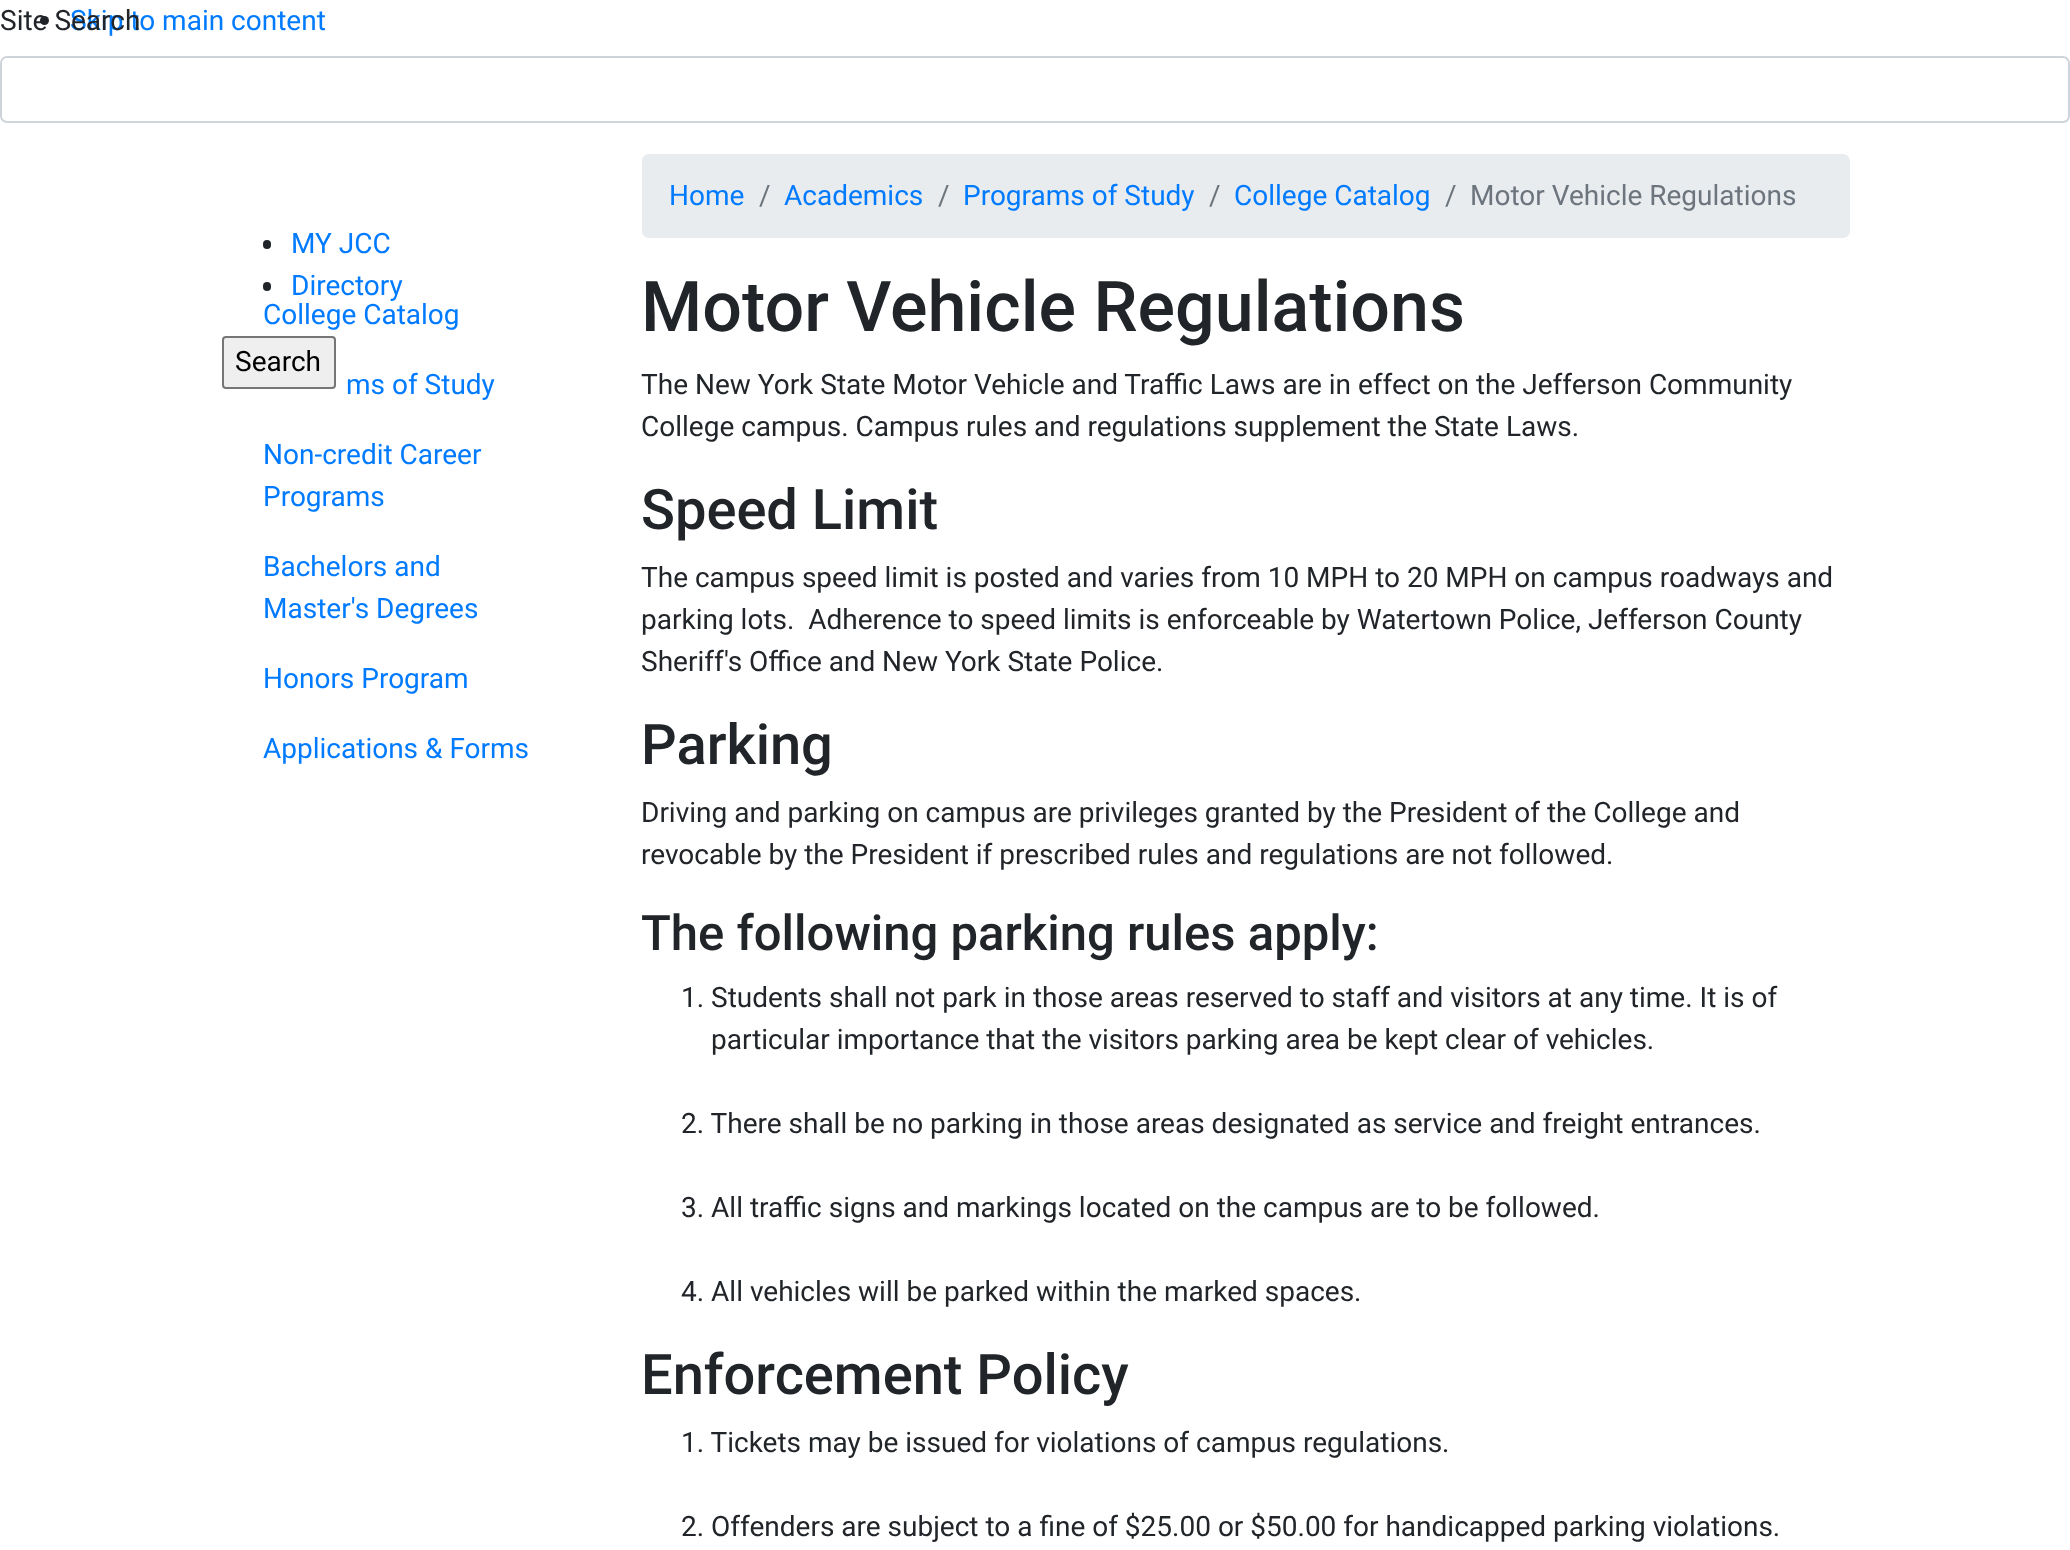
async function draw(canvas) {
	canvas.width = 2070;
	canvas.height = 1550;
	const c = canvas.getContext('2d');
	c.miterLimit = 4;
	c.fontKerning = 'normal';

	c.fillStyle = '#fff';
	c.fillRect(0, 0, 2070, 1550);
	c.fillStyle = '#212529';
	c.beginPath();
	c.arc(44.5, 20.5, 4.5, 0, 2 * Math.PI);
	c.fill();
	c.font = '28px Roboto';
	c.fillStyle = '#007bff';
	c.fillText('Skip to main content', 70, 30);
	c.fillStyle = '#212529';
	c.fillText('Site Search', 0, 30);
	c.beginPath();
	c.roundRect(1, 57, 2068, 65, 6);
	c.strokeStyle = '#ced4da';
	c.lineWidth = 2;
	c.stroke();
	c.beginPath();
	c.roundRect(263, 240, 8, 9, 4);
	c.fill();
	c.fillStyle = '#007bff';
	c.fillText('MY JCC', 291, 253);
	c.fillStyle = '#212529';
	c.beginPath();
	c.roundRect(263, 282, 8, 9, 4);
	c.fill();
	c.fillStyle = '#007bff';
	c.fillText('Directory', 291, 295);
	c.fillStyle = '#efefef';
	c.beginPath();
	c.roundRect(223, 337, 112, 51, 3);
	c.fill();
	c.strokeStyle = '#767676';
	c.stroke();
	c.fillStyle = '#000';
	c.fillText('Search', 235, 371);
	c.fillStyle = '#e9ecef';
	c.beginPath();
	c.roundRect(642, 154, 1208, 84, 7);
	c.fill();
	c.fillStyle = '#007bff';
	c.fillText('Home', 669, 205);
	c.fillStyle = '#6c757d';
	c.fillText('/', 759, 205);
	c.fillStyle = '#007bff';
	c.fillText('Academics', 784, 205);
	c.fillStyle = '#6c757d';
	c.fillText('/', 938, 205);
	c.fillStyle = '#007bff';
	c.fillText('Programs of Study', 963, 205);
	c.fillStyle = '#6c757d';
	c.fillText('/', 1209, 205);
	c.fillStyle = '#007bff';
	c.fillText('College Catalog', 1234, 205);
	c.fillStyle = '#6c757d';
	c.fillText('/', 1445, 205);
	c.fillText('Motor Vehicle Regulations', 1470, 205);
	c.fillStyle = '#007bff';
	for (const [text, x, y] of [
		['College Catalog', 263, 324],
		['ms of Study', 346, 394],
		['Non-credit Career', 263, 464],
		['Programs', 263, 506],
		['Bachelors and', 263, 576],
		['Master\'s Degrees', 263, 618],
		['Honors Program', 263, 688],
		['Applications & Forms', 263, 758],
	]) {
		c.fillText(text, x, y);
	}
	c.font = '500 70px Roboto';
	c.fillStyle = '#212529';
	c.fillText('Motor Vehicle Regulations', 641, 331);
	c.font = '28px Roboto';
	c.fillText('The New York State Motor Vehicle and Traffic Laws are in effect on the Jefferson Community', 641, 394);
	c.fillText('College campus. Campus rules and regulations supplement the State Laws.', 641, 436);
	c.font = '500 56px Roboto';
	c.fillText('Speed Limit', 641, 529);
	c.font = '28px Roboto';
	for (const [text, x, y] of [
		['The campus speed limit is posted and varies from 10 MPH to 20 MPH on campus roadways and', 641, 587],
		['parking lots.  Adherence to speed limits is enforceable by Watertown Police, Jefferson County', 641, 629],
		['Sheriff\'s Office and New York State Police.', 641, 671],
	]) {
		c.fillText(text, x, y);
	}
	c.font = '500 56px Roboto';
	c.fillText('Parking', 641, 764);
	c.font = '28px Roboto';
	c.fillText('Driving and parking on campus are privileges granted by the President of the College and', 641, 822);
	c.fillText('revocable by the President if prescribed rules and regulations are not followed.', 641, 864);
	c.font = '500 49px Roboto';
	c.fillText('The following parking rules apply:', 641, 950);
	c.font = '28px Roboto';
	for (const [text, x, y] of [
		['1. Students shall not park in those areas reserved to staff and visitors at any time. It is of', 681, 1007],
		['particular importance that the visitors parking area be kept clear of vehicles.', 711, 1049],
		['2. There shall be no parking in those areas designated as service and freight entrances.', 681, 1133],
		['3. All traffic signs and markings located on the campus are to be followed.', 681, 1217],
		['4. All vehicles will be parked within the marked spaces.', 681, 1301],
	]) {
		c.fillText(text, x, y);
	}
	c.font = '500 56px Roboto';
	c.fillText('Enforcement Policy', 641, 1394);
	c.font = '28px Roboto';
	c.fillText('1. Tickets may be issued for violations of campus regulations.', 681, 1452);
	c.fillText('2. Offenders are subject to a fine of $25.00 or $50.00 for handicapped parking violations.', 681, 1536);
}

draw(document.querySelector('canvas'));
